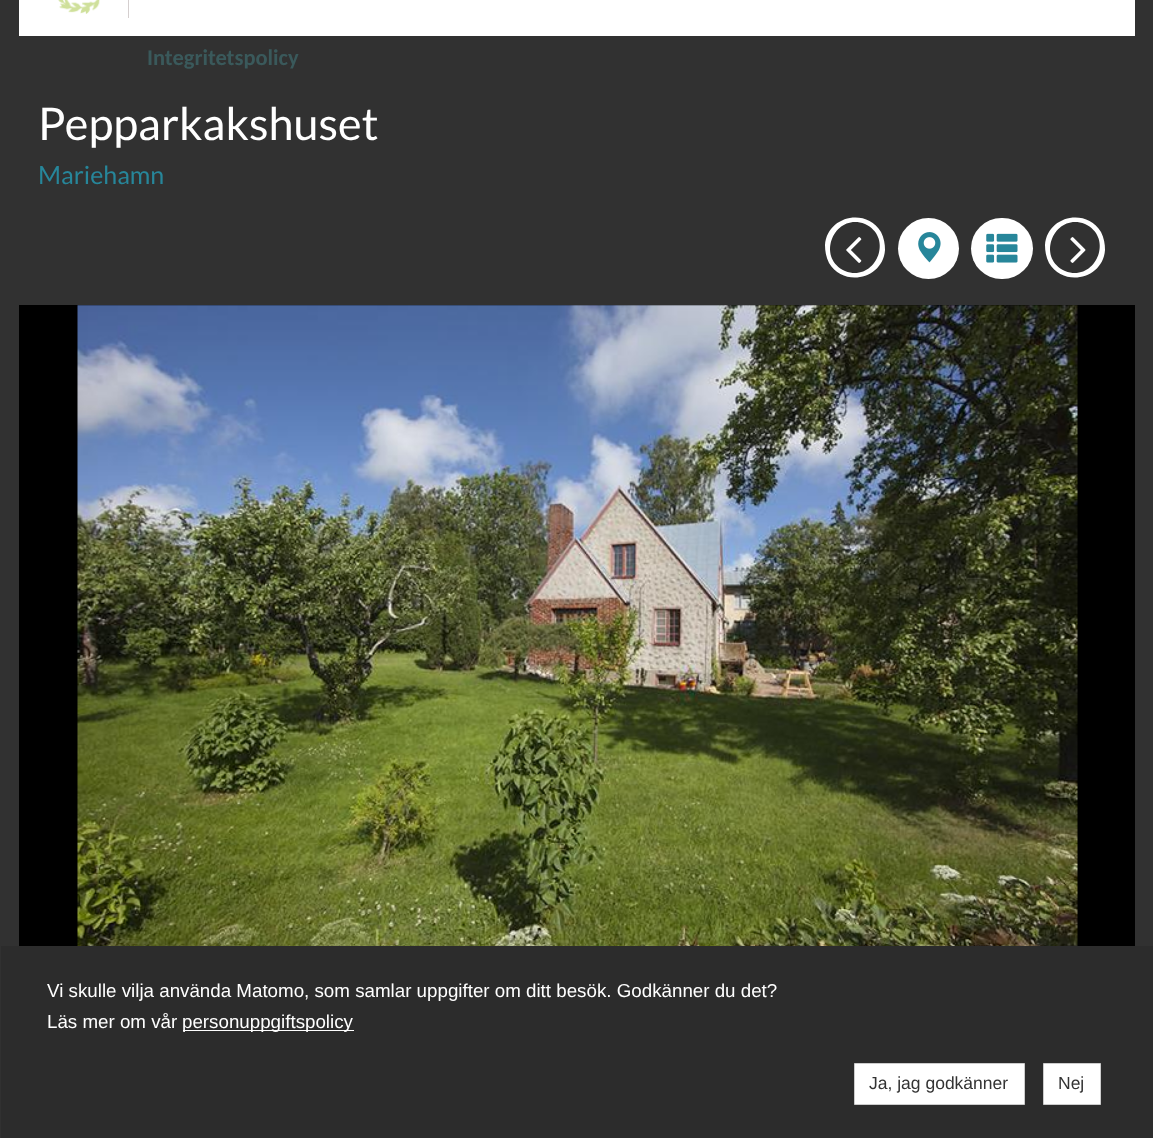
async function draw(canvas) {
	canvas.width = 1153;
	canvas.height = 1138;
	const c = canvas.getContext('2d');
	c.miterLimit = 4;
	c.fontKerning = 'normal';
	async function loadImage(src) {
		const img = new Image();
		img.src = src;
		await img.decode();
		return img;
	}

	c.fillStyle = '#313131';
	c.fillRect(0, 0, 1153, 1138);
	c.fillStyle = '#fff';
	c.fillRect(19, 0, 1116, 36);
	c.fillStyle = '#d5cfcf';
	c.fillRect(128, 0, 1, 18);
	c.drawImage(await loadImage('img1.png'), 58, 0, 42, 14);
	c.font = 'bold 22.5px Carlito';
	c.fillStyle = '#3a595b';
	c.fillText('Integritetspolicy', 147, 65);
	c.font = '45px Lato';
	c.fillStyle = '#fff';
	c.fillText('Pepparkakshuset', 38, 140);
	c.font = '25px Lato';
	c.fillStyle = '#27869a';
	c.fillText('Mariehamn', 38, 184);
	c.fillStyle = '#fff';
	c.beginPath();
	c.moveTo(865, 224);
	c.bezierCurveTo(835, 212, 815, 257, 845, 271);
	c.bezierCurveTo(875, 283, 895, 238, 865, 224);
	c.closePath();
	c.moveTo(881, 232);
	c.bezierCurveTo(884, 238, 885, 244, 885, 250);
	c.bezierCurveTo(883, 279, 844, 288, 829, 263);
	c.bezierCurveTo(826, 257, 825, 251, 825, 245);
	c.bezierCurveTo(827, 216, 866, 207, 881, 232);
	c.closePath();
	c.fill();
	c.drawImage(await loadImage('img2.png'), 846, 237, 16, 26);
	c.beginPath();
	c.arc(928.5, 248.5, 30.5, 0, 2 * Math.PI);
	c.fill();
	c.drawImage(await loadImage('img3.png'), 918, 232, 23, 31);
	c.beginPath();
	c.roundRect(971, 218, 62, 61, 30.5);
	c.fill();
	c.drawImage(await loadImage('img4.png'), 986, 233, 32, 30);
	c.beginPath();
	c.moveTo(1085, 224);
	c.bezierCurveTo(1055, 212, 1035, 257, 1065, 271);
	c.bezierCurveTo(1095, 283, 1115, 238, 1085, 224);
	c.closePath();
	c.moveTo(1101, 232);
	c.bezierCurveTo(1104, 238, 1105, 244, 1105, 250);
	c.bezierCurveTo(1103, 279, 1064, 288, 1049, 263);
	c.bezierCurveTo(1046, 257, 1045, 251, 1045, 245);
	c.bezierCurveTo(1047, 216, 1086, 207, 1101, 232);
	c.closePath();
	c.fill();
	c.drawImage(await loadImage('img5.png'), 1070, 237, 16, 26);
	c.fillStyle = '#000';
	c.fillRect(19, 305, 1116, 641);
	c.drawImage(await loadImage('img6.png'), 77, 305, 1001, 641);
	c.fillStyle = '#2c2c2c';
	c.fillRect(1, 946, 1152, 192);
	c.font = '18.75px Liberation Sans';
	c.fillStyle = '#fff';
	c.fillText('Vi skulle vilja använda Matomo, som samlar uppgifter om ditt besök. Godkänner du det?', 47, 997);
	c.fillText('Läs mer om vår', 47, 1028);
	c.fillRect(183, 1030, 171, 1);
	c.fillText('personuppgiftspolicy', 182, 1028);
	c.beginPath();
	c.rect(854.5, 1063.5, 170, 41);
	c.fill();
	c.strokeStyle = '#ccc';
	c.stroke();
	c.font = '17.5px Liberation Sans';
	c.fillStyle = '#333';
	c.fillText('Ja, jag godkänner', 869, 1089);
	c.fillStyle = '#fff';
	c.beginPath();
	c.rect(1043.5, 1063.5, 57, 41);
	c.fill();
	c.stroke();
	c.fillStyle = '#333';
	c.fillText('Nej', 1058, 1089);
}

draw(document.querySelector('canvas'));
